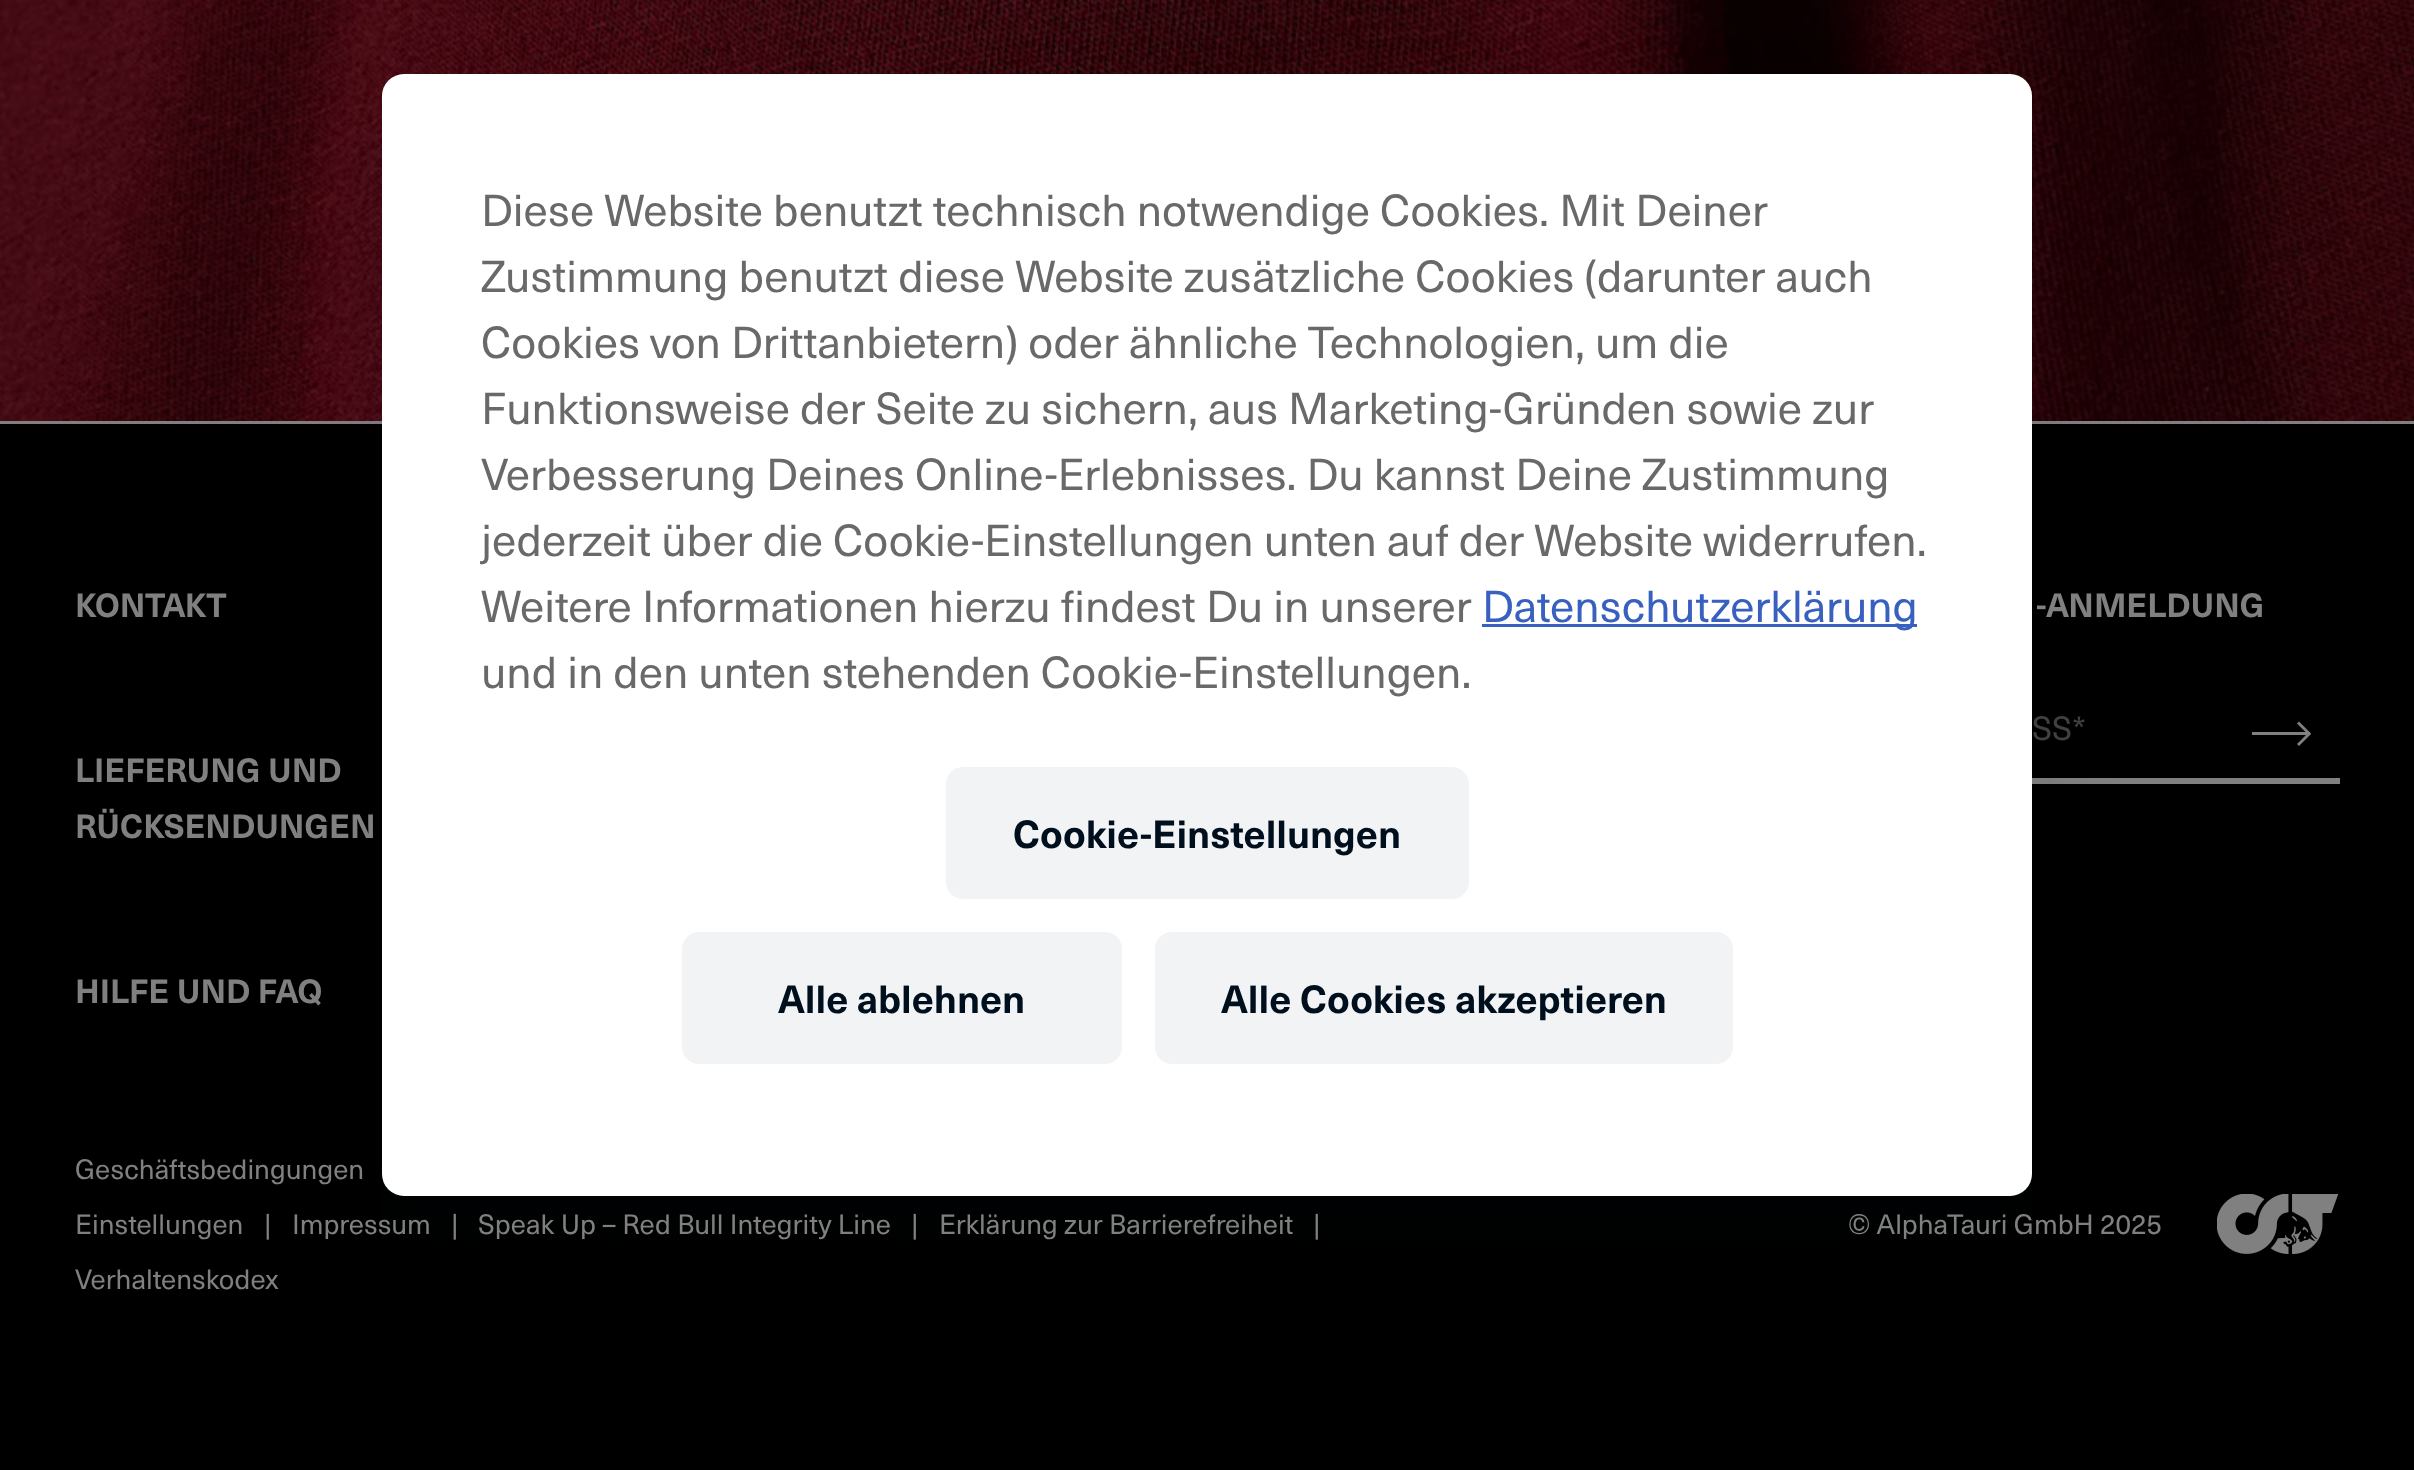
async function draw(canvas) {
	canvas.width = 2414;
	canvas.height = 1470;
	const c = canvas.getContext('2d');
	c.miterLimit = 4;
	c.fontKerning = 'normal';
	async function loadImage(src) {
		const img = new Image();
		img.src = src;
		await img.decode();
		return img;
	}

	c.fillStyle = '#808080';
	c.fillRect(0, 0, 2414, 1470);
	c.drawImage(await loadImage('img1.png'), 0, 0, 2414, 421);
	c.fillStyle = '#000';
	c.fillRect(0, 424, 2414, 1046);
	c.fillStyle = '#808080';
	c.fillRect(2032, 778, 308, 6);
	c.fillStyle = '#000f1e14';
	c.filter = 'blur(44px)';
	c.beginPath();
	c.roundRect(382, 118, 1650, 1122, 22);
	c.fill();
	c.filter = 'none';
	c.fillStyle = '#fff';
	c.beginPath();
	c.roundRect(382, 74, 1650, 1122, 22);
	c.fill();
	c.font = '44px "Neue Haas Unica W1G"';
	c.fillStyle = '#696969';
	for (const [text, x, y] of [
		['Diese Website benutzt technisch notwendige Cookies. Mit Deiner', 481, 226],
		['Zustimmung benutzt diese Website zusätzliche Cookies (darunter auch', 481, 292],
		['Cookies von Drittanbietern) oder ähnliche Technologien, um die', 481, 358],
		['Funktionsweise der Seite zu sichern, aus Marketing-Gründen sowie zur', 481, 424],
		['Verbesserung Deines Online-Erlebnisses. Du kannst Deine Zustimmung', 481, 490],
		['jederzeit über die Cookie-Einstellungen unten auf der Website widerrufen.', 481, 556],
		['Weitere Informationen hierzu findest Du in unserer', 481, 622],
	]) {
		c.fillText(text, x, y);
	}
	c.fillStyle = '#3860be';
	c.fillRect(1482, 624, 435, 3);
	c.fillText('Datenschutzerklärung', 1482, 622);
	c.fillStyle = '#696969';
	c.fillText('und in den unten stehenden Cookie-Einstellungen.', 481, 688);
	c.fillStyle = '#f2f3f4';
	c.beginPath();
	c.roundRect(946, 767, 523, 132, 17);
	c.fill();
	c.font = 'bold 38.5px "Neue Haas Unica W1G"';
	c.fillStyle = '#000f1e';
	c.fillText('Cookie-Einstellungen', 1013, 848);
	c.fillStyle = '#f2f3f4';
	c.beginPath();
	c.roundRect(682, 932, 440, 132, 17);
	c.fill();
	c.fillStyle = '#000f1e';
	c.fillText('Alle ablehnen', 778, 1013);
	c.fillStyle = '#f2f3f4';
	c.beginPath();
	c.roundRect(1155, 932, 578, 132, 17);
	c.fill();
	c.fillStyle = '#000f1e';
	c.fillText('Alle Cookies akzeptieren', 1221, 1013);
	c.font = 'bold 33px "Neue Haas Unica W1G"';
	c.fillStyle = '#808080';
	for (const [text, x, y] of [
		['KONTAKT', 75, 617],
		['LIEFERUNG UND', 75, 782],
		['RÜCKSENDUNGEN', 75, 838],
		['HILFE UND FAQ', 75, 1003],
		['-ANMELDUNG', 2036, 617],
	]) {
		c.fillText(text, x, y);
	}
	c.font = '33px "Neue Haas Unica W1G"';
	c.fillStyle = '#404040';
	c.fillText('SS*', 2032, 740);
	c.fillStyle = '#808080';
	c.fillRect(2252, 732, 58, 3);
	c.beginPath();
	c.moveTo(2299, 721.5);
	c.lineTo(2311, 733.5);
	c.lineTo(2309, 735.5);
	c.lineTo(2297, 723.5);
	c.closePath();
	c.fill();
	c.beginPath();
	c.moveTo(2297, 744);
	c.lineTo(2309, 732);
	c.lineTo(2311, 734);
	c.lineTo(2299, 746);
	c.closePath();
	c.fill();
	c.font = '27.5px "Neue Haas Unica W1G"';
	for (const [text, x, y] of [
		['Geschäftsbedingungen', 75, 1179],
		['Einstellungen', 75, 1234],
		['|', 264, 1234],
		['Impressum', 292, 1234],
		['|', 451, 1234],
		['Speak Up – Red Bull Integrity Line', 478, 1234],
		['|', 911, 1234],
		['Erklärung zur Barrierefreiheit', 939, 1234],
		['|', 1313, 1234],
		['Verhaltenskodex', 75, 1289],
		['© AlphaTauri GmbH 2025', 1848, 1234],
	]) {
		c.fillText(text, x, y);
	}
	c.drawImage(await loadImage('img2.png'), 2217, 1194, 121, 60);
}

draw(document.querySelector('canvas'));
